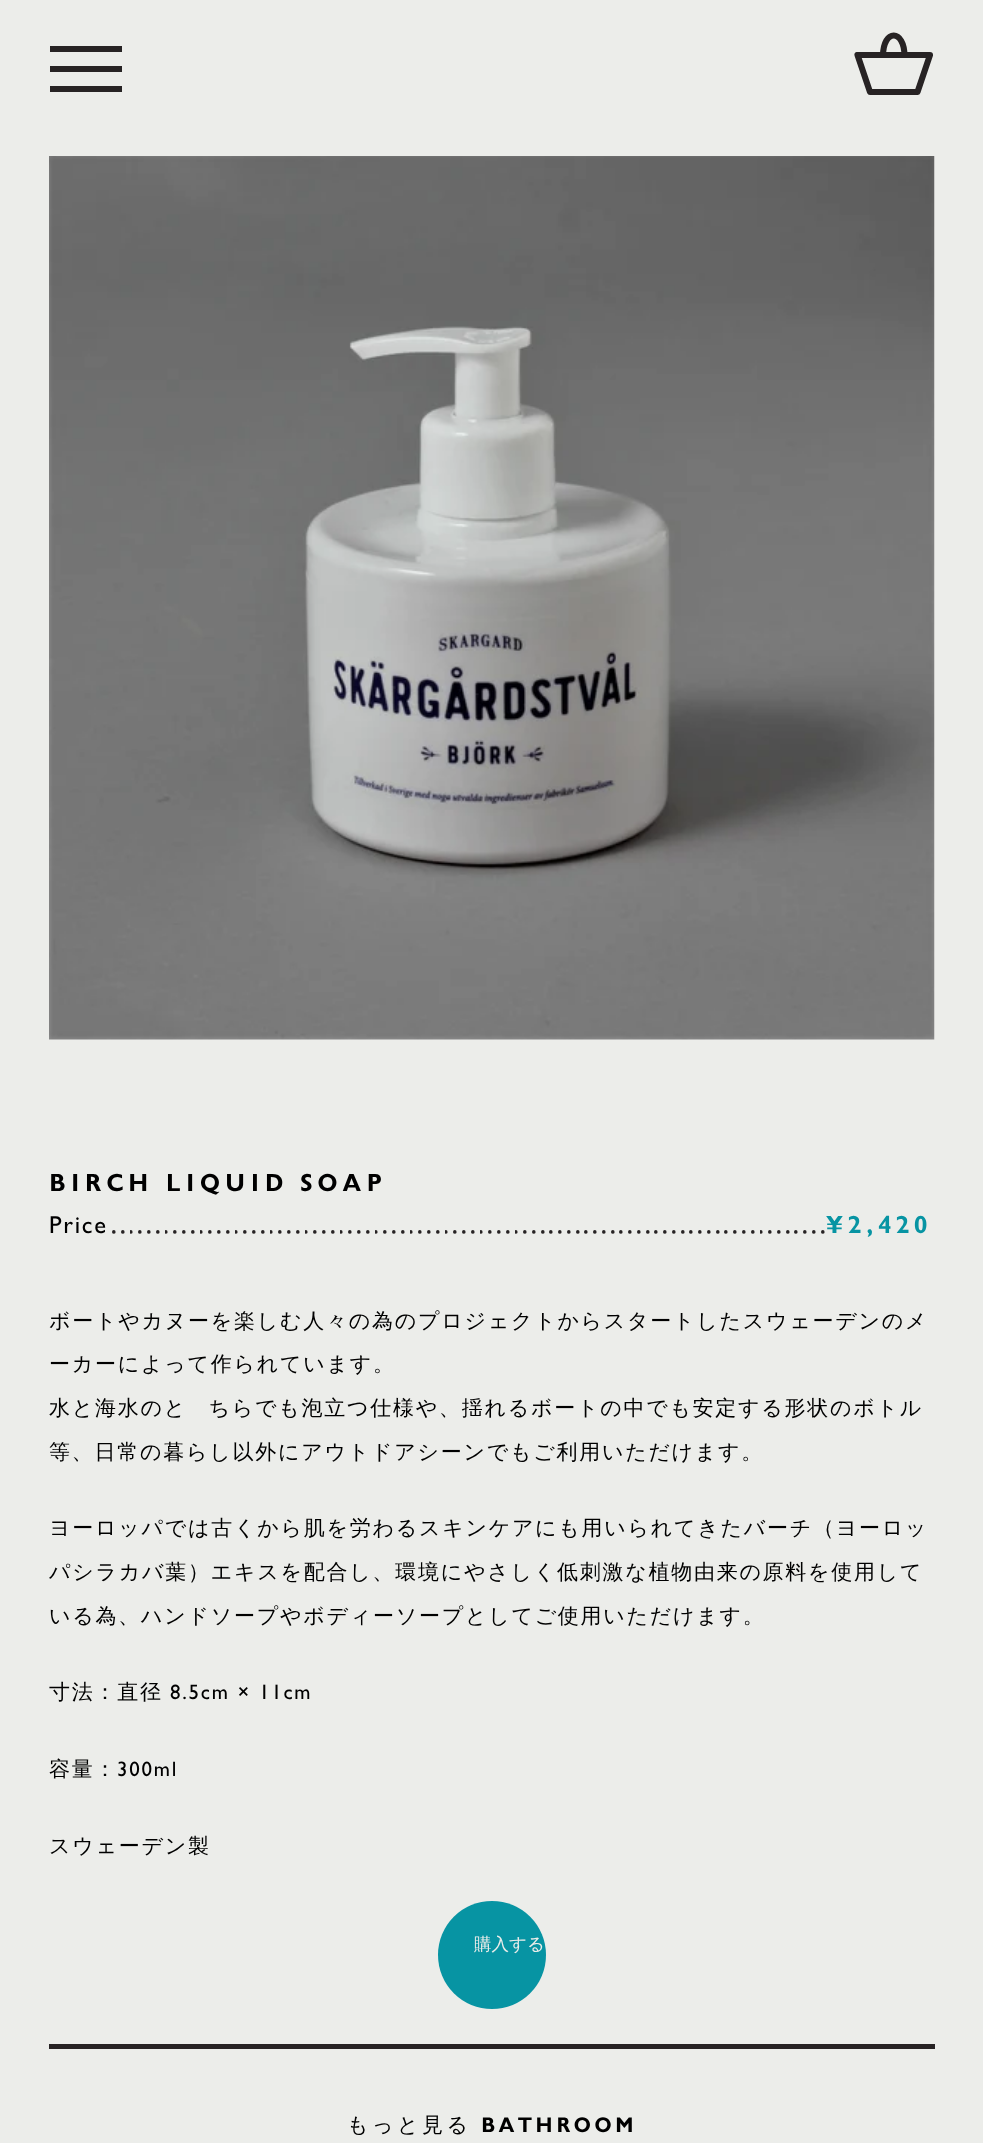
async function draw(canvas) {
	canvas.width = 983;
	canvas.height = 2143;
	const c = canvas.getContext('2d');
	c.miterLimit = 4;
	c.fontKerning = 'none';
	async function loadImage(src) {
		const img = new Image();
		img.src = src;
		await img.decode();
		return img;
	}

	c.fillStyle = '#ecedea';
	c.fillRect(0, 0, 983, 2143);
	for (const [x, y, w, h, color] of [
		[50, 86, 72, 6, '#272324'],
		[50, 66, 72, 6, '#272324'],
		[50, 46, 72, 6, '#272324'],
	]) {
		c.fillStyle = color;
		c.fillRect(x, y, w, h);
	}
	c.beginPath();
	c.moveTo(883, 56);
	c.bezierCurveTo(883, 28.5, 904.5, 29, 904.5, 56);
	c.strokeStyle = '#272324';
	c.lineWidth = 6.1;
	c.stroke();
	c.beginPath();
	c.moveTo(917.5, 92);
	c.lineTo(870, 92);
	c.lineTo(857.5, 55);
	c.lineTo(930, 55);
	c.closePath();
	c.lineJoin = 'round';
	c.stroke();
	c.drawImage(await loadImage('img1.png'), 49, 156, 886, 884);
	c.letterSpacing = '5.25px';
	c.font = 'bold 24.5px "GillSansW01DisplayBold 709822"';
	c.fillStyle = '#000';
	c.fillText('BIRCH LIQUID SOAP', 49, 1191);
	c.letterSpacing = '1.75px';
	c.font = '500 24.5px Gill Sans';
	c.fillText('Price', 49, 1233);
	c.drawImage(await loadImage('img2.png'), 112, 1230, 713, 4);
	c.letterSpacing = '5.25px';
	c.font = 'bold 24.5px "GillSansW01DisplayBold 709822"';
	c.fillStyle = '#0794a3';
	c.fillText('¥2,420', 826, 1233);
	c.letterSpacing = '1.75px';
	c.font = '500 21px WenQuanYi Zen Hei';
	c.fillStyle = '#000';
	for (const [text, x, y] of [
		['ボートやカヌーを楽しむ人々の為のプロジェクトからスタートしたスウェーデンのメ', 49, 1328],
		['ーカーによって作られています。', 49, 1371],
		['水と海水のどちらでも泡立つ仕様や、揺れるボートの中でも安定する形状のボトル', 49, 1415],
		['等、日常の暮らし以外にアウトドアシーンでもご利用いただけます。', 49, 1459],
		['ヨーロッパでは古くから肌を労わるスキンケアにも用いられてきたバーチ（ヨーロッ', 49, 1535],
		['パシラカバ葉）エキスを配合し、環境にやさしく低刺激な植物由来の原料を使用して', 49, 1579],
		['いる為、ハンドソープやボディーソープとしてご使用いただけます。', 49, 1623],
		['寸法：直径', 49, 1699],
	]) {
		c.fillText(text, x, y);
	}
	c.font = '500 21px Gill Sans';
	c.fillText('8.5cm × 11cm', 170, 1699);
	c.font = '500 21px WenQuanYi Zen Hei';
	c.fillText('容量：', 49, 1776);
	c.font = '500 21px Gill Sans';
	c.fillText('300ml', 117, 1776);
	c.font = '500 21px WenQuanYi Zen Hei';
	c.fillText('スウェーデン製', 49, 1853);
	c.fillStyle = '#0794a3';
	c.beginPath();
	c.arc(492, 1955, 54, 0, 2 * Math.PI);
	c.fill();
	c.letterSpacing = '0px';
	c.font = '500 17.5px WenQuanYi Zen Hei';
	c.fillStyle = '#ecedea';
	c.fillText('購入する', 474, 1950);
	c.fillStyle = '#272324';
	c.fillRect(49, 2044, 886, 5);
	c.letterSpacing = '3.5px';
	c.font = '500 21px WenQuanYi Zen Hei';
	c.fillStyle = '#000';
	c.fillText('もっと見る', 347, 2132);
	c.font = 'bold 21px "GillSansW01DisplayBold 709822"';
	c.fillText('BATHROOM', 481, 2132);
}

draw(document.querySelector('canvas'));
